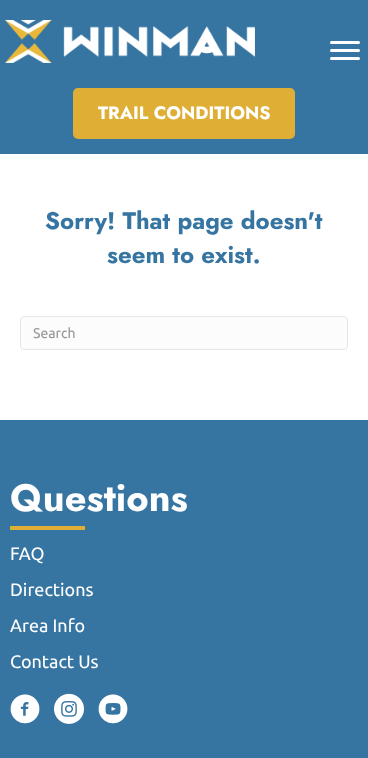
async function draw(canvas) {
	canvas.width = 368;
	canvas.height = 758;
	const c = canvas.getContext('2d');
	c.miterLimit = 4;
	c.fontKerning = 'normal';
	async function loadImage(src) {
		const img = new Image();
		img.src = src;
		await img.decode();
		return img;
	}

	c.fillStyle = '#fff';
	c.fillRect(0, 0, 368, 758);
	c.fillStyle = '#3675a2';
	c.fillRect(0, 0, 368, 154);
	c.drawImage(await loadImage('img1.png'), 5, 20, 250, 43);
	c.fillStyle = '#fff';
	c.beginPath();
	c.roundRect(330, 49, 30, 3, 1.5);
	c.fill();
	c.beginPath();
	c.roundRect(330, 41, 30, 3, 1.5);
	c.fill();
	c.beginPath();
	c.roundRect(330, 57, 30, 3, 1.5);
	c.fill();
	c.fillStyle = '#deae35';
	c.beginPath();
	c.roundRect(73, 88, 222, 51, 5);
	c.fill();
	c.font = 'bold 18px Jost';
	c.fillStyle = '#fff';
	c.fillText('TRAIL CONDITIONS', 98, 119);
	c.font = 'bold 24px Jost';
	c.fillStyle = '#3675a2';
	c.fillText('Sorry! That page doesn\'t', 45, 229);
	c.fillText('seem to exist.', 107, 263);
	c.fillStyle = '#fcfcfc';
	c.beginPath();
	c.roundRect(20.5, 316.5, 327, 33, 3.5);
	c.fill();
	c.strokeStyle = '#e6e6e6';
	c.stroke();
	c.font = '14px Ubuntu';
	c.fillStyle = '#979797';
	c.fillText('Search', 33, 338);
	c.fillStyle = '#3675a2';
	c.fillRect(0, 420, 368, 338);
	c.font = 'bold 38px Jost';
	c.fillStyle = '#fff';
	c.fillText('Questions', 10, 511);
	c.fillStyle = '#deae35';
	c.fillRect(10, 526, 75, 4);
	c.font = '18px Ubuntu';
	c.fillStyle = '#fff';
	for (const [text, x, y] of [
		['FAQ', 10, 560],
		['Directions', 10, 596],
		['Area Info', 10, 632],
		['Contact Us', 10, 668],
	]) {
		c.fillText(text, x, y);
	}
	c.drawImage(await loadImage('img2.png'), 10, 694, 30, 30);
	c.drawImage(await loadImage('img3.png'), 54, 693, 30, 31);
	c.drawImage(await loadImage('img4.png'), 98, 694, 30, 30);
}

draw(document.querySelector('canvas'));
